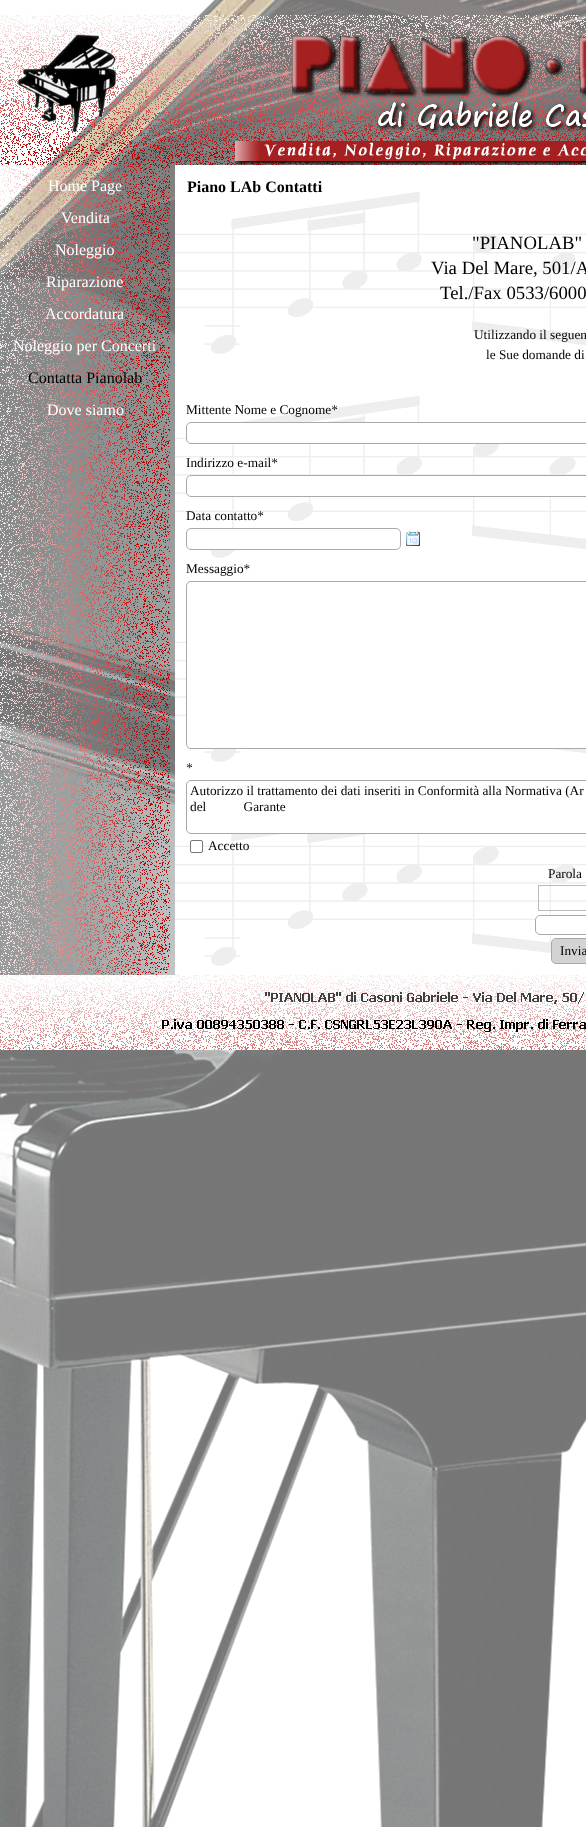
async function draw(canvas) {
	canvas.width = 586;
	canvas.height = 1827;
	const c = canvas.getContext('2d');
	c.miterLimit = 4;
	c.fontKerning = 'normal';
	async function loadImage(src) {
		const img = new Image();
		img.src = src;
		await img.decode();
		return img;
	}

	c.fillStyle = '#fff';
	c.fillRect(0, 0, 586, 1827);
	c.drawImage(await loadImage('img1.png'), 0, 0, 586, 1827);
	c.drawImage(await loadImage('img2.png'), 0, 15, 586, 150);
	c.drawImage(await loadImage('img3.png'), 0, 165, 170, 810);
	c.fillRect(175, 165, 411, 810);
	c.drawImage(await loadImage('img4.png'), 175, 191, 411, 775);
	c.font = '16px Liberation Serif';
	for (const [text, x, y] of [
		['Home Page', 48, 191],
		['Vendita', 61, 223],
		['Noleggio', 55, 255],
		['Riparazione', 46, 287],
		['Accordatura', 45, 319],
		['Noleggio per Concerti', 13, 351],
	]) {
		c.fillText(text, x, y);
	}
	c.fillStyle = '#000';
	c.fillText('Contatta Pianolab', 28, 383);
	c.fillStyle = '#fff';
	c.fillText('Dove siamo', 47, 415);
	c.font = 'bold 16px Liberation Serif';
	c.fillStyle = '#000';
	c.fillText('Piano LAb Contatti', 187, 192);
	c.font = '18.75px Liberation Serif';
	for (const [text, x, y] of [
		['"PIANOLAB"', 472, 249],
		['Via Del Mare, 501/A', 431, 274],
		['Tel./Fax 0533/6000', 440, 299],
	]) {
		c.fillText(text, x, y);
	}
	c.font = '13.3px Liberation Serif';
	for (const [text, x, y] of [
		['Utilizzando il seguen', 474, 339],
		['le Sue domande di', 486, 359],
		['Mittente Nome e Cognome*', 186, 414],
	]) {
		c.fillText(text, x, y);
	}
	c.fillStyle = '#fff';
	c.beginPath();
	c.roundRect(186.5, 422.5, 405, 21, 4.5);
	c.fill();
	c.strokeStyle = '#a9a9a9';
	c.stroke();
	c.fillStyle = '#000';
	c.fillText('Indirizzo e-mail*', 186, 467);
	c.fillStyle = '#fff';
	c.beginPath();
	c.roundRect(186.5, 475.5, 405, 21, 4.5);
	c.fill();
	c.stroke();
	c.fillStyle = '#000';
	c.fillText('Data contatto*', 186, 520);
	c.fillStyle = '#fff';
	c.beginPath();
	c.roundRect(186.5, 528.5, 214, 21, 4.5);
	c.fill();
	c.stroke();
	c.drawImage(await loadImage('img5.png'), 406, 531, 14, 15);
	c.fillStyle = '#000';
	c.fillText('Messaggio*', 186, 573);
	c.fillStyle = '#fff';
	c.beginPath();
	c.roundRect(186.5, 581.5, 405, 167, 4.5);
	c.fill();
	c.stroke();
	c.fillStyle = '#000';
	c.fillText('*', 186, 772);
	c.fillStyle = '#fff';
	c.beginPath();
	c.roundRect(186.5, 780.5, 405, 53, 4.5);
	c.fill();
	c.stroke();
	c.fillStyle = '#000';
	c.fillText('Autorizzo il trattamento dei dati inseriti in Conformità alla Normativa (Ar', 190, 795);
	c.wordSpacing = '34px';
	c.fillText('del Garante', 190, 811);
	c.fillStyle = '#fff';
	c.beginPath();
	c.roundRect(190.5, 840.5, 12, 12, 1.5);
	c.fill();
	c.strokeStyle = '#767676';
	c.stroke();
	c.wordSpacing = '0px';
	c.fillStyle = '#000';
	c.fillText('Accetto', 208, 850);
	c.fillText('Parola', 548, 878);
	c.strokeStyle = '#bbb';
	c.strokeRect(538.5, 885.5, 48, 25);
	c.fillStyle = '#fff';
	c.beginPath();
	c.roundRect(535.5, 915.5, 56, 19, 4.5);
	c.fill();
	c.strokeStyle = '#a9a9a9';
	c.stroke();
	c.fillStyle = '#d3d3d3';
	c.beginPath();
	c.roundRect(551.5, 938.5, 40, 25, 4.5);
	c.fill();
	c.stroke();
	c.fillStyle = '#000';
	c.fillText('Invia', 560, 955);
	c.drawImage(await loadImage('img6.png'), 0, 975, 586, 75);
}

draw(document.querySelector('canvas'));
